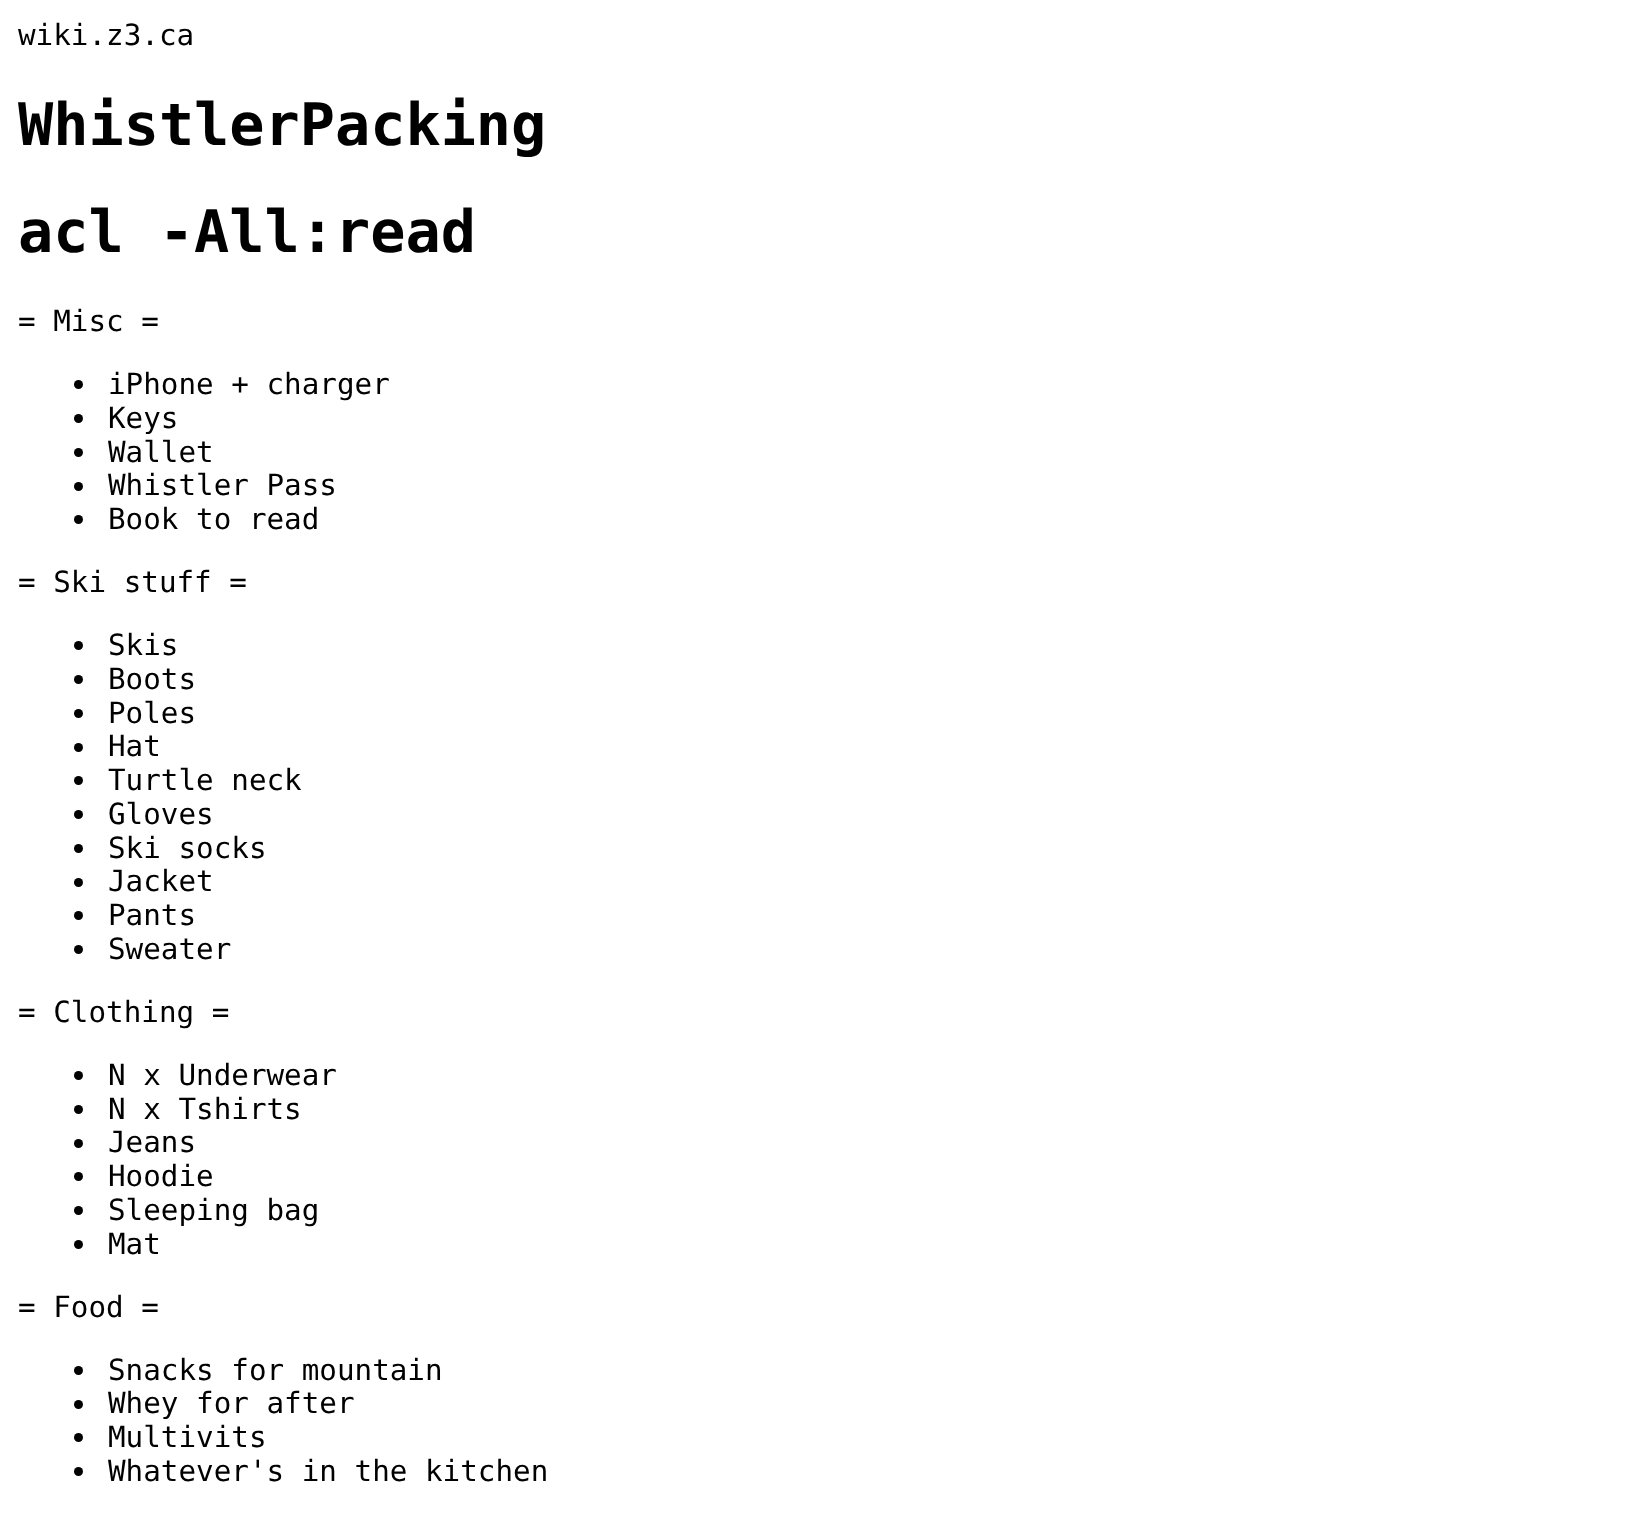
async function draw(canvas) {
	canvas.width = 1641;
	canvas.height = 1527;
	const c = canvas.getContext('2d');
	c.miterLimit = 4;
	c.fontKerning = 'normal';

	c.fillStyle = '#fff';
	c.fillRect(0, 0, 1641, 1527);
	c.font = '29.25px DejaVu Sans Mono';
	c.fillStyle = '#000';
	c.fillText('wiki.z3.ca', 18, 45);
	c.font = 'bold 58.5px DejaVu Sans Mono';
	c.fillText('WhistlerPacking', 18, 145);
	c.fillText('acl -All:read', 18, 252);
	c.font = '29.25px DejaVu Sans Mono';
	c.fillText('= Misc =', 18, 331);
	c.beginPath();
	c.arc(78.5, 384.5, 4.5, 0, 2 * Math.PI);
	c.fill();
	c.fillText('iPhone + charger', 108, 394);
	c.beginPath();
	c.arc(78.5, 418.5, 4.5, 0, 2 * Math.PI);
	c.fill();
	c.fillText('Keys', 108, 428);
	c.beginPath();
	c.arc(78.5, 452.5, 4.5, 0, 2 * Math.PI);
	c.fill();
	c.fillText('Wallet', 108, 462);
	c.beginPath();
	c.arc(78.5, 486.5, 4.5, 0, 2 * Math.PI);
	c.fill();
	c.fillText('Whistler Pass', 108, 495);
	c.beginPath();
	c.arc(78.5, 519.5, 4.5, 0, 2 * Math.PI);
	c.fill();
	c.fillText('Book to read', 108, 529);
	c.fillText('= Ski stuff =', 18, 592);
	c.beginPath();
	c.arc(78.5, 645.5, 4.5, 0, 2 * Math.PI);
	c.fill();
	c.fillText('Skis', 108, 655);
	c.beginPath();
	c.arc(78.5, 679.5, 4.5, 0, 2 * Math.PI);
	c.fill();
	c.fillText('Boots', 108, 689);
	c.beginPath();
	c.arc(78.5, 713.5, 4.5, 0, 2 * Math.PI);
	c.fill();
	c.fillText('Poles', 108, 723);
	c.beginPath();
	c.arc(78.5, 747.5, 4.5, 0, 2 * Math.PI);
	c.fill();
	c.fillText('Hat', 108, 756);
	c.beginPath();
	c.arc(78.5, 780.5, 4.5, 0, 2 * Math.PI);
	c.fill();
	c.fillText('Turtle neck', 108, 790);
	c.beginPath();
	c.arc(78.5, 814.5, 4.5, 0, 2 * Math.PI);
	c.fill();
	c.fillText('Gloves', 108, 824);
	c.beginPath();
	c.arc(78.5, 848.5, 4.5, 0, 2 * Math.PI);
	c.fill();
	c.fillText('Ski socks', 108, 858);
	c.beginPath();
	c.arc(78.5, 882.5, 4.5, 0, 2 * Math.PI);
	c.fill();
	c.fillText('Jacket', 108, 891);
	c.beginPath();
	c.arc(78.5, 915.5, 4.5, 0, 2 * Math.PI);
	c.fill();
	c.fillText('Pants', 108, 925);
	c.beginPath();
	c.arc(78.5, 949.5, 4.5, 0, 2 * Math.PI);
	c.fill();
	c.fillText('Sweater', 108, 959);
	c.fillText('= Clothing =', 18, 1022);
	c.beginPath();
	c.arc(78.5, 1075.5, 4.5, 0, 2 * Math.PI);
	c.fill();
	c.fillText('N x Underwear', 108, 1085);
	c.beginPath();
	c.arc(78.5, 1109.5, 4.5, 0, 2 * Math.PI);
	c.fill();
	c.fillText('N x Tshirts', 108, 1119);
	c.beginPath();
	c.arc(78.5, 1143.5, 4.5, 0, 2 * Math.PI);
	c.fill();
	c.fillText('Jeans', 108, 1152);
	c.beginPath();
	c.arc(78.5, 1176.5, 4.5, 0, 2 * Math.PI);
	c.fill();
	c.fillText('Hoodie', 108, 1186);
	c.beginPath();
	c.arc(78.5, 1210.5, 4.5, 0, 2 * Math.PI);
	c.fill();
	c.fillText('Sleeping bag', 108, 1220);
	c.beginPath();
	c.arc(78.5, 1244.5, 4.5, 0, 2 * Math.PI);
	c.fill();
	c.fillText('Mat', 108, 1254);
	c.fillText('= Food =', 18, 1317);
	c.beginPath();
	c.arc(78.5, 1370.5, 4.5, 0, 2 * Math.PI);
	c.fill();
	c.fillText('Snacks for mountain', 108, 1380);
	c.beginPath();
	c.arc(78.5, 1404.5, 4.5, 0, 2 * Math.PI);
	c.fill();
	c.fillText('Whey for after', 108, 1413);
	c.beginPath();
	c.arc(78.5, 1437.5, 4.5, 0, 2 * Math.PI);
	c.fill();
	c.fillText('Multivits', 108, 1447);
	c.beginPath();
	c.arc(78.5, 1471.5, 4.5, 0, 2 * Math.PI);
	c.fill();
	c.fillText('Whatever\'s in the kitchen', 108, 1481);
}

draw(document.querySelector('canvas'));
